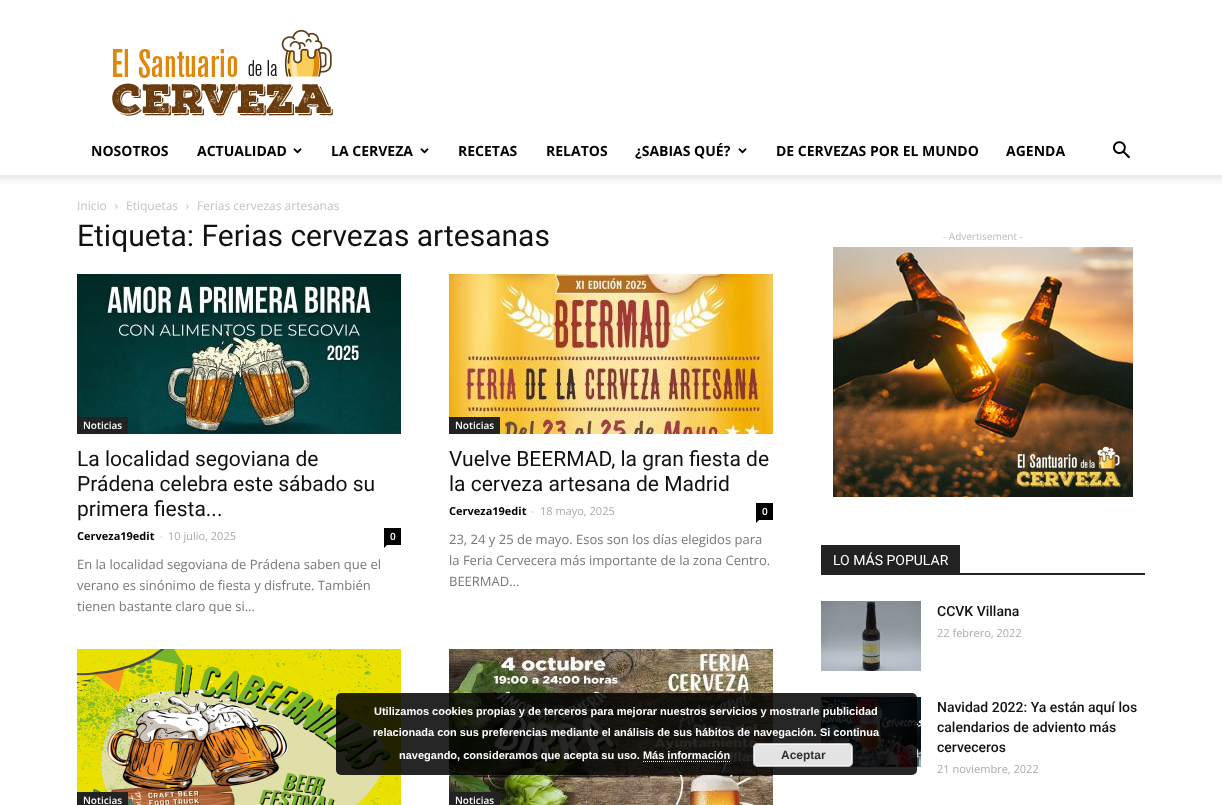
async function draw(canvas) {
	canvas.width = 1222;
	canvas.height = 805;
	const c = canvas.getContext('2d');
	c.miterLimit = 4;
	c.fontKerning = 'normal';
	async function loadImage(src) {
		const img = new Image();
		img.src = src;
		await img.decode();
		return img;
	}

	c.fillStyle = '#fff';
	c.fillRect(0, 0, 1222, 805);
	c.drawImage(await loadImage('img1.png'), 112, 30, 221, 86);
	c.font = 'bold 14px Open Sans';
	c.fillStyle = '#000';
	c.fillText('NOSOTROS', 91, 156);
	c.fillText('ACTUALIDAD', 197, 156);
	c.drawImage(await loadImage('img2.png'), 293, 148, 9, 6);
	c.fillText('LA CERVEZA', 331, 156);
	c.drawImage(await loadImage('img2.png'), 420, 148, 9, 6);
	for (const [text, x, y] of [
		['RECETAS', 458, 156],
		['RELATOS', 546, 156],
		['¿SABIAS QUÉ?', 635, 156],
	]) {
		c.fillText(text, x, y);
	}
	c.drawImage(await loadImage('img2.png'), 738, 148, 9, 6);
	c.fillText('DE CERVEZAS POR EL MUNDO', 776, 156);
	c.fillText('AGENDA', 1006, 156);
	c.drawImage(await loadImage('img3.png'), 1113, 141, 17, 18);
	c.drawImage(await loadImage('img4.png'), 0, 175, 1222, 9);
	c.font = '12px Open Sans';
	c.fillStyle = '#c3c3c3';
	c.fillText('Inicio', 77, 210);
	c.drawImage(await loadImage('img5.png'), 115, 204, 3, 5);
	c.fillText('Etiquetas', 126, 210);
	c.drawImage(await loadImage('img5.png'), 186, 204, 3, 5);
	c.fillText('Ferias cervezas artesanas', 197, 210);
	c.font = '30px Roboto';
	c.fillStyle = '#111';
	c.fillText('Etiqueta: Ferias cervezas artesanas', 77, 246);
	c.drawImage(await loadImage('img6.png'), 77, 274, 324, 160);
	c.fillStyle = '#222';
	c.fillRect(77, 417, 51, 17);
	c.font = '600 10px Open Sans';
	c.fillStyle = '#fff';
	c.fillText('Noticias', 83, 429);
	c.font = '21px Roboto';
	c.fillStyle = '#111';
	for (const [text, x, y] of [
		['La localidad segoviana de', 77, 466],
		['Prádena celebra este sábado su', 77, 491],
		['primera fiesta...', 77, 516],
	]) {
		c.fillText(text, x, y);
	}
	c.font = 'bold 11px Open Sans';
	c.fillStyle = '#000';
	c.fillText('Cerveza19edit', 77, 540);
	c.font = '11px Open Sans';
	c.fillStyle = '#ccc';
	c.fillText('-', 159, 540);
	c.fillStyle = '#aaa';
	c.fillText('10 julio, 2025', 168, 540);
	c.fillStyle = '#000';
	c.fillRect(384, 528, 17, 17);
	c.font = '600 10px Open Sans';
	c.fillStyle = '#fff';
	c.fillText('0', 390, 540);
	c.fillStyle = '#000';
	c.beginPath();
	c.moveTo(384, 545);
	c.lineTo(387, 545);
	c.lineTo(384, 548);
	c.closePath();
	c.fill();
	c.font = '13px Open Sans';
	c.fillStyle = '#777';
	for (const [text, x, y] of [
		['En la localidad segoviana de Prádena saben que el', 77, 569],
		['verano es sinónimo de fiesta y disfrute. También', 77, 590],
		['tienen bastante claro que si...', 77, 611],
	]) {
		c.fillText(text, x, y);
	}
	c.drawImage(await loadImage('img7.png'), 449, 274, 324, 160);
	c.fillStyle = '#222';
	c.fillRect(449, 417, 51, 17);
	c.font = '600 10px Open Sans';
	c.fillStyle = '#fff';
	c.fillText('Noticias', 455, 429);
	c.font = '21px Roboto';
	c.fillStyle = '#111';
	c.fillText('Vuelve BEERMAD, la gran fiesta de', 449, 466);
	c.fillText('la cerveza artesana de Madrid', 449, 491);
	c.font = 'bold 11px Open Sans';
	c.fillStyle = '#000';
	c.fillText('Cerveza19edit', 449, 515);
	c.font = '11px Open Sans';
	c.fillStyle = '#ccc';
	c.fillText('-', 531, 515);
	c.fillStyle = '#aaa';
	c.fillText('18 mayo, 2025', 540, 515);
	c.fillStyle = '#000';
	c.fillRect(756, 503, 17, 17);
	c.font = '600 10px Open Sans';
	c.fillStyle = '#fff';
	c.fillText('0', 762, 515);
	c.fillStyle = '#000';
	c.beginPath();
	c.moveTo(756, 520);
	c.lineTo(759, 520);
	c.lineTo(756, 523);
	c.closePath();
	c.fill();
	c.font = '13px Open Sans';
	c.fillStyle = '#777';
	for (const [text, x, y] of [
		['23, 24 y 25 de mayo. Esos son los días elegidos para', 449, 544],
		['la Feria Cervecera más importante de la zona Centro.', 449, 565],
		['BEERMAD...', 449, 586],
	]) {
		c.fillText(text, x, y);
	}
	c.drawImage(await loadImage('img8.png'), 77, 649, 324, 156);
	c.fillStyle = '#222';
	c.fillRect(77, 792, 51, 13);
	c.font = '600 10px Open Sans';
	c.fillStyle = '#fff';
	c.fillText('Noticias', 83, 804);
	c.drawImage(await loadImage('img9.png'), 449, 649, 324, 156);
	c.fillStyle = '#222';
	c.fillRect(449, 792, 51, 13);
	c.fillStyle = '#fff';
	c.fillText('Noticias', 455, 804);
	c.font = '10px Open Sans';
	c.fillStyle = '#bbb';
	c.fillText('- Advertisement -', 943, 240);
	c.drawImage(await loadImage('img10.png'), 833, 247, 300, 250);
	c.fillStyle = '#222';
	c.fillRect(821, 573, 324, 2);
	c.fillRect(821, 545, 139, 28);
	c.font = '14px Roboto';
	c.fillStyle = '#fff';
	c.fillText('LO MÁS POPULAR', 833, 565);
	c.drawImage(await loadImage('img11.png'), 821, 601, 100, 70);
	c.font = '500 14px Roboto';
	c.fillStyle = '#111';
	c.fillText('CCVK Villana', 937, 616);
	c.font = '11px Open Sans';
	c.fillStyle = '#aaa';
	c.fillText('22 febrero, 2022', 937, 637);
	c.drawImage(await loadImage('img12.png'), 821, 697, 100, 70);
	c.font = '500 14px Roboto';
	c.fillStyle = '#111';
	for (const [text, x, y] of [
		['Navidad 2022: Ya están aquí los', 937, 712],
		['calendarios de adviento más', 937, 732],
		['cerveceros', 937, 752],
	]) {
		c.fillText(text, x, y);
	}
	c.font = '11px Open Sans';
	c.fillStyle = '#aaa';
	c.fillText('21 noviembre, 2022', 937, 773);
	c.fillStyle = '#000000d9';
	c.beginPath();
	c.roundRect(336, 693, 581, 82, 5);
	c.fill();
	c.font = 'bold 11px Liberation Sans';
	c.fillStyle = '#fff';
	for (const [text, x, y] of [
		['Utilizamos cookies propias y de terceros para mejorar nuestros servicios y mostrarle publicidad', 374, 715],
		['relacionada con sus preferencias mediante el análisis de sus hábitos de navegación. Si continua', 373, 736],
		['navegando, consideramos que acepta su uso. Más información', 399, 759],
	]) {
		c.fillText(text, x, y);
	}
	c.fillStyle = '#e3e3e3';
	c.beginPath();
	c.roundRect(753, 743, 100, 24, 5);
	c.fill();
	c.beginPath();
	c.roundRect(754.5, 744.5, 97, 21, 3.5);
	c.strokeStyle = '#f6f6f6';
	c.stroke();
	c.beginPath();
	c.roundRect(753.5, 743.5, 99, 23, 4.5);
	c.strokeStyle = '#bbb';
	c.stroke();
	c.font = 'bold 12px Liberation Sans';
	c.fillStyle = '#333';
	c.fillText('Aceptar', 781, 759);
	c.beginPath();
	c.moveTo(643, 761.5);
	c.lineTo(730, 761.5);
	c.strokeStyle = '#fff';
	c.setLineDash([1, 1]);
	c.stroke();
}

draw(document.querySelector('canvas'));
